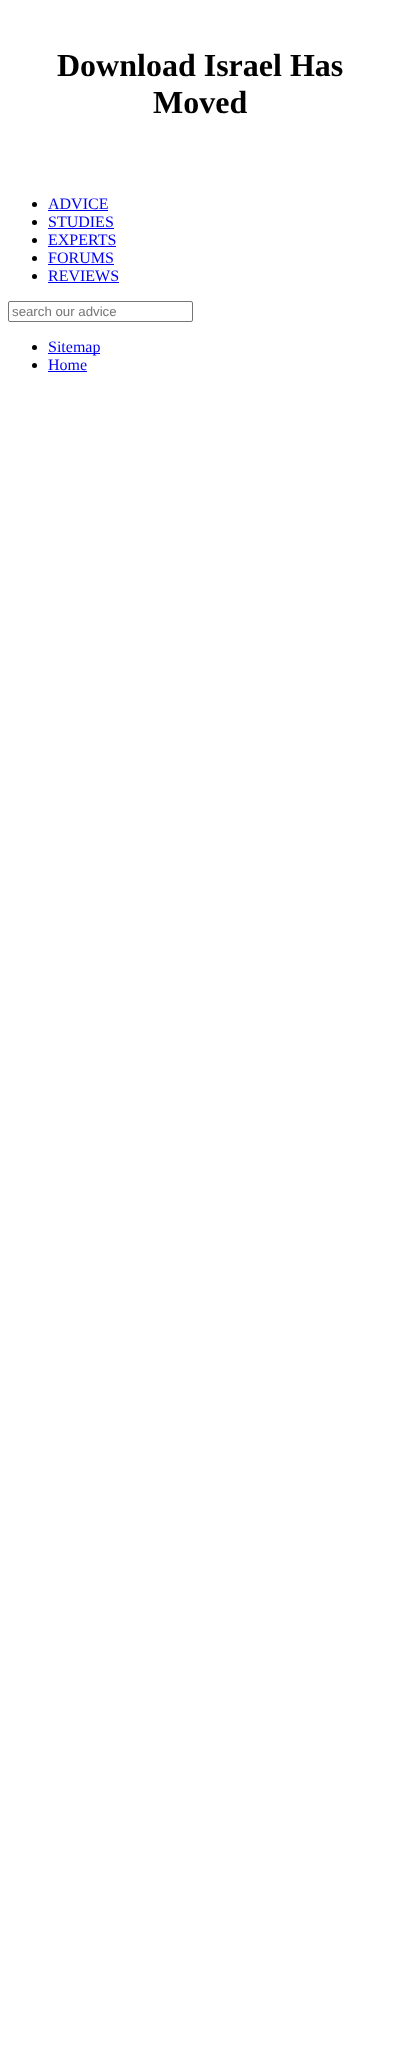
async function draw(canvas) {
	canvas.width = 401;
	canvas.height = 2047;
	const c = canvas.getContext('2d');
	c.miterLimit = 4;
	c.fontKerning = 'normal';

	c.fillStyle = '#fff';
	c.fillRect(0, 0, 401, 2047);
	c.font = 'bold 32px Liberation Serif';
	c.fillStyle = '#000';
	c.fillText('Download Israel Has', 57, 76);
	c.fillText('Moved', 153, 113);
	c.beginPath();
	c.arc(34.5, 204.5, 2.5, 0, 2 * Math.PI);
	c.fill();
	c.font = '16px Liberation Serif';
	c.fillStyle = '#00e';
	c.fillText('ADVICE', 48, 209);
	c.fillRect(48, 210, 60, 1);
	c.fillStyle = '#000';
	c.beginPath();
	c.arc(34.5, 222.5, 2.5, 0, 2 * Math.PI);
	c.fill();
	c.fillStyle = '#00e';
	c.fillText('STUDIES', 48, 227);
	c.fillRect(48, 228, 66, 1);
	c.fillStyle = '#000';
	c.beginPath();
	c.arc(34.5, 240.5, 2.5, 0, 2 * Math.PI);
	c.fill();
	c.fillStyle = '#00e';
	c.fillText('EXPERTS', 48, 245);
	c.fillRect(48, 246, 68, 1);
	c.fillStyle = '#000';
	c.beginPath();
	c.arc(34.5, 258.5, 2.5, 0, 2 * Math.PI);
	c.fill();
	c.fillStyle = '#00e';
	c.fillText('FORUMS', 48, 263);
	c.fillRect(48, 264, 66, 1);
	c.fillStyle = '#000';
	c.beginPath();
	c.arc(34.5, 276.5, 2.5, 0, 2 * Math.PI);
	c.fill();
	c.fillStyle = '#00e';
	c.fillText('REVIEWS', 48, 281);
	c.fillRect(48, 282, 71, 1);
	c.beginPath();
	c.roundRect(8.5, 301.5, 184, 20, 1.5);
	c.strokeStyle = '#767676';
	c.stroke();
	c.font = '13.25px Liberation Sans';
	c.fillStyle = '#757575';
	c.fillText('search our advice', 12, 316);
	c.fillStyle = '#000';
	c.beginPath();
	c.arc(34.5, 347.5, 2.5, 0, 2 * Math.PI);
	c.fill();
	c.fillStyle = '#00e';
	c.fillRect(48, 353, 52, 1);
	c.font = '16px Liberation Serif';
	c.fillText('Sitemap', 48, 352);
	c.fillStyle = '#000';
	c.beginPath();
	c.arc(34.5, 365.5, 2.5, 0, 2 * Math.PI);
	c.fill();
	c.fillStyle = '#00e';
	c.fillText('Home', 48, 370);
	c.fillRect(48, 371, 39, 1);
}

draw(document.querySelector('canvas'));
